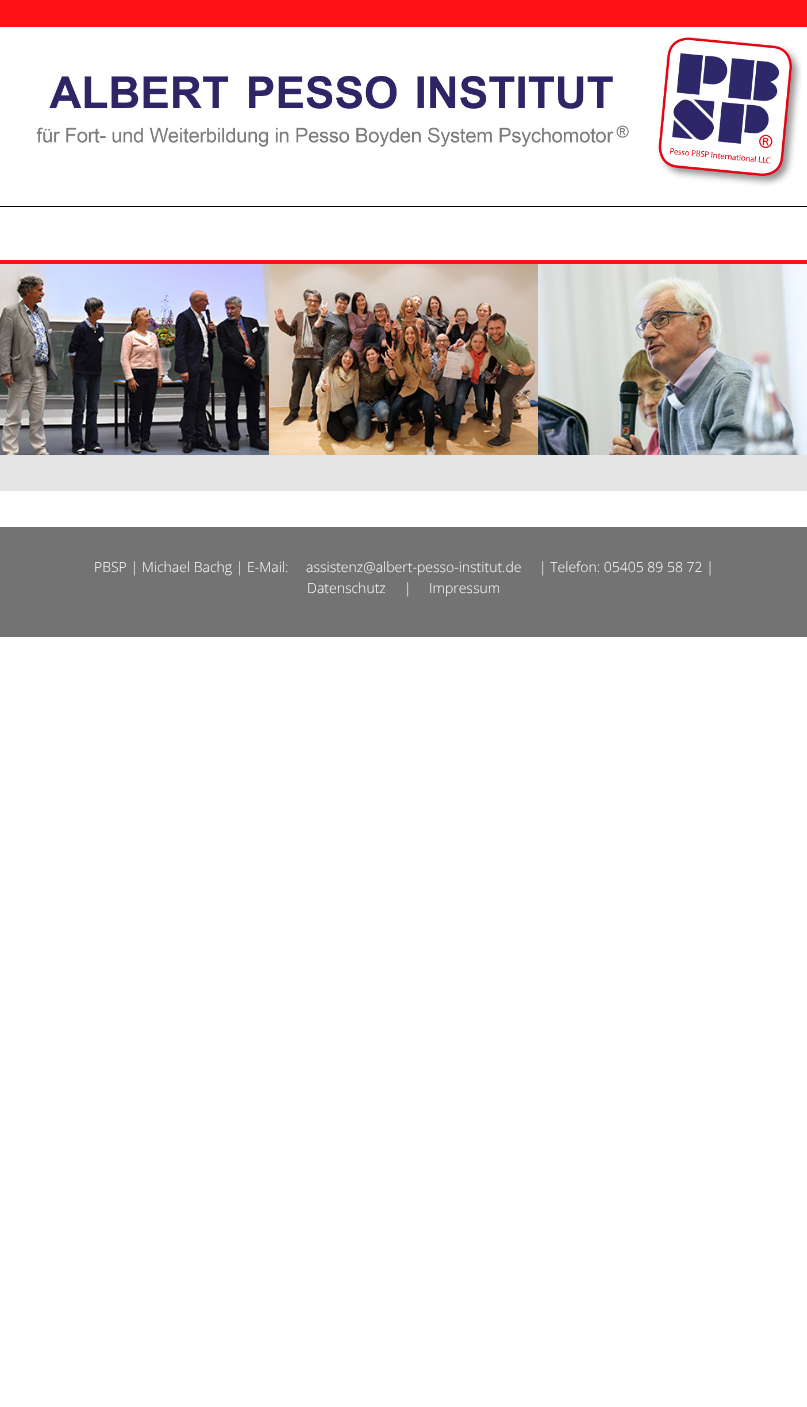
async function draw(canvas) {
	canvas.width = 807;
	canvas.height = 1407;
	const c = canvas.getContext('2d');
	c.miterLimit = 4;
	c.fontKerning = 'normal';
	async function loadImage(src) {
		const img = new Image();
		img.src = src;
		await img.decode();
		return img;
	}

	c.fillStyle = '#fff';
	c.fillRect(0, 0, 807, 1407);
	c.fillStyle = '#fe1214';
	c.fillRect(0, 0, 807, 27);
	c.drawImage(await loadImage('img1.png'), 36, 36, 766, 151);
	for (const [x, y, w, h, color] of [
		[0, 206, 807, 1, '#000'],
		[0, 260, 807, 4, '#fe1214'],
		[0, 455, 807, 36, '#e4e4e4'],
	]) {
		c.fillStyle = color;
		c.fillRect(x, y, w, h);
	}
	c.drawImage(await loadImage('img2.png'), 0, 264, 269, 191);
	c.drawImage(await loadImage('img3.png'), 269, 264, 269, 191);
	c.drawImage(await loadImage('img4.png'), 538, 264, 269, 191);
	c.fillStyle = '#737373';
	c.fillRect(0, 527, 807, 110);
	c.font = '300 14px Open Sans';
	c.fillStyle = '#fff';
	for (const [text, x, y] of [
		['PBSP | Michael Bachg | E-Mail:', 94, 572],
		['assistenz@albert-pesso-institut.de', 306, 572],
		['| Telefon: 05405 89 58 72 |', 539, 572],
		['Datenschutz', 307, 593],
		['|', 404, 593],
		['Impressum', 429, 593],
	]) {
		c.fillText(text, x, y);
	}
}

draw(document.querySelector('canvas'));
